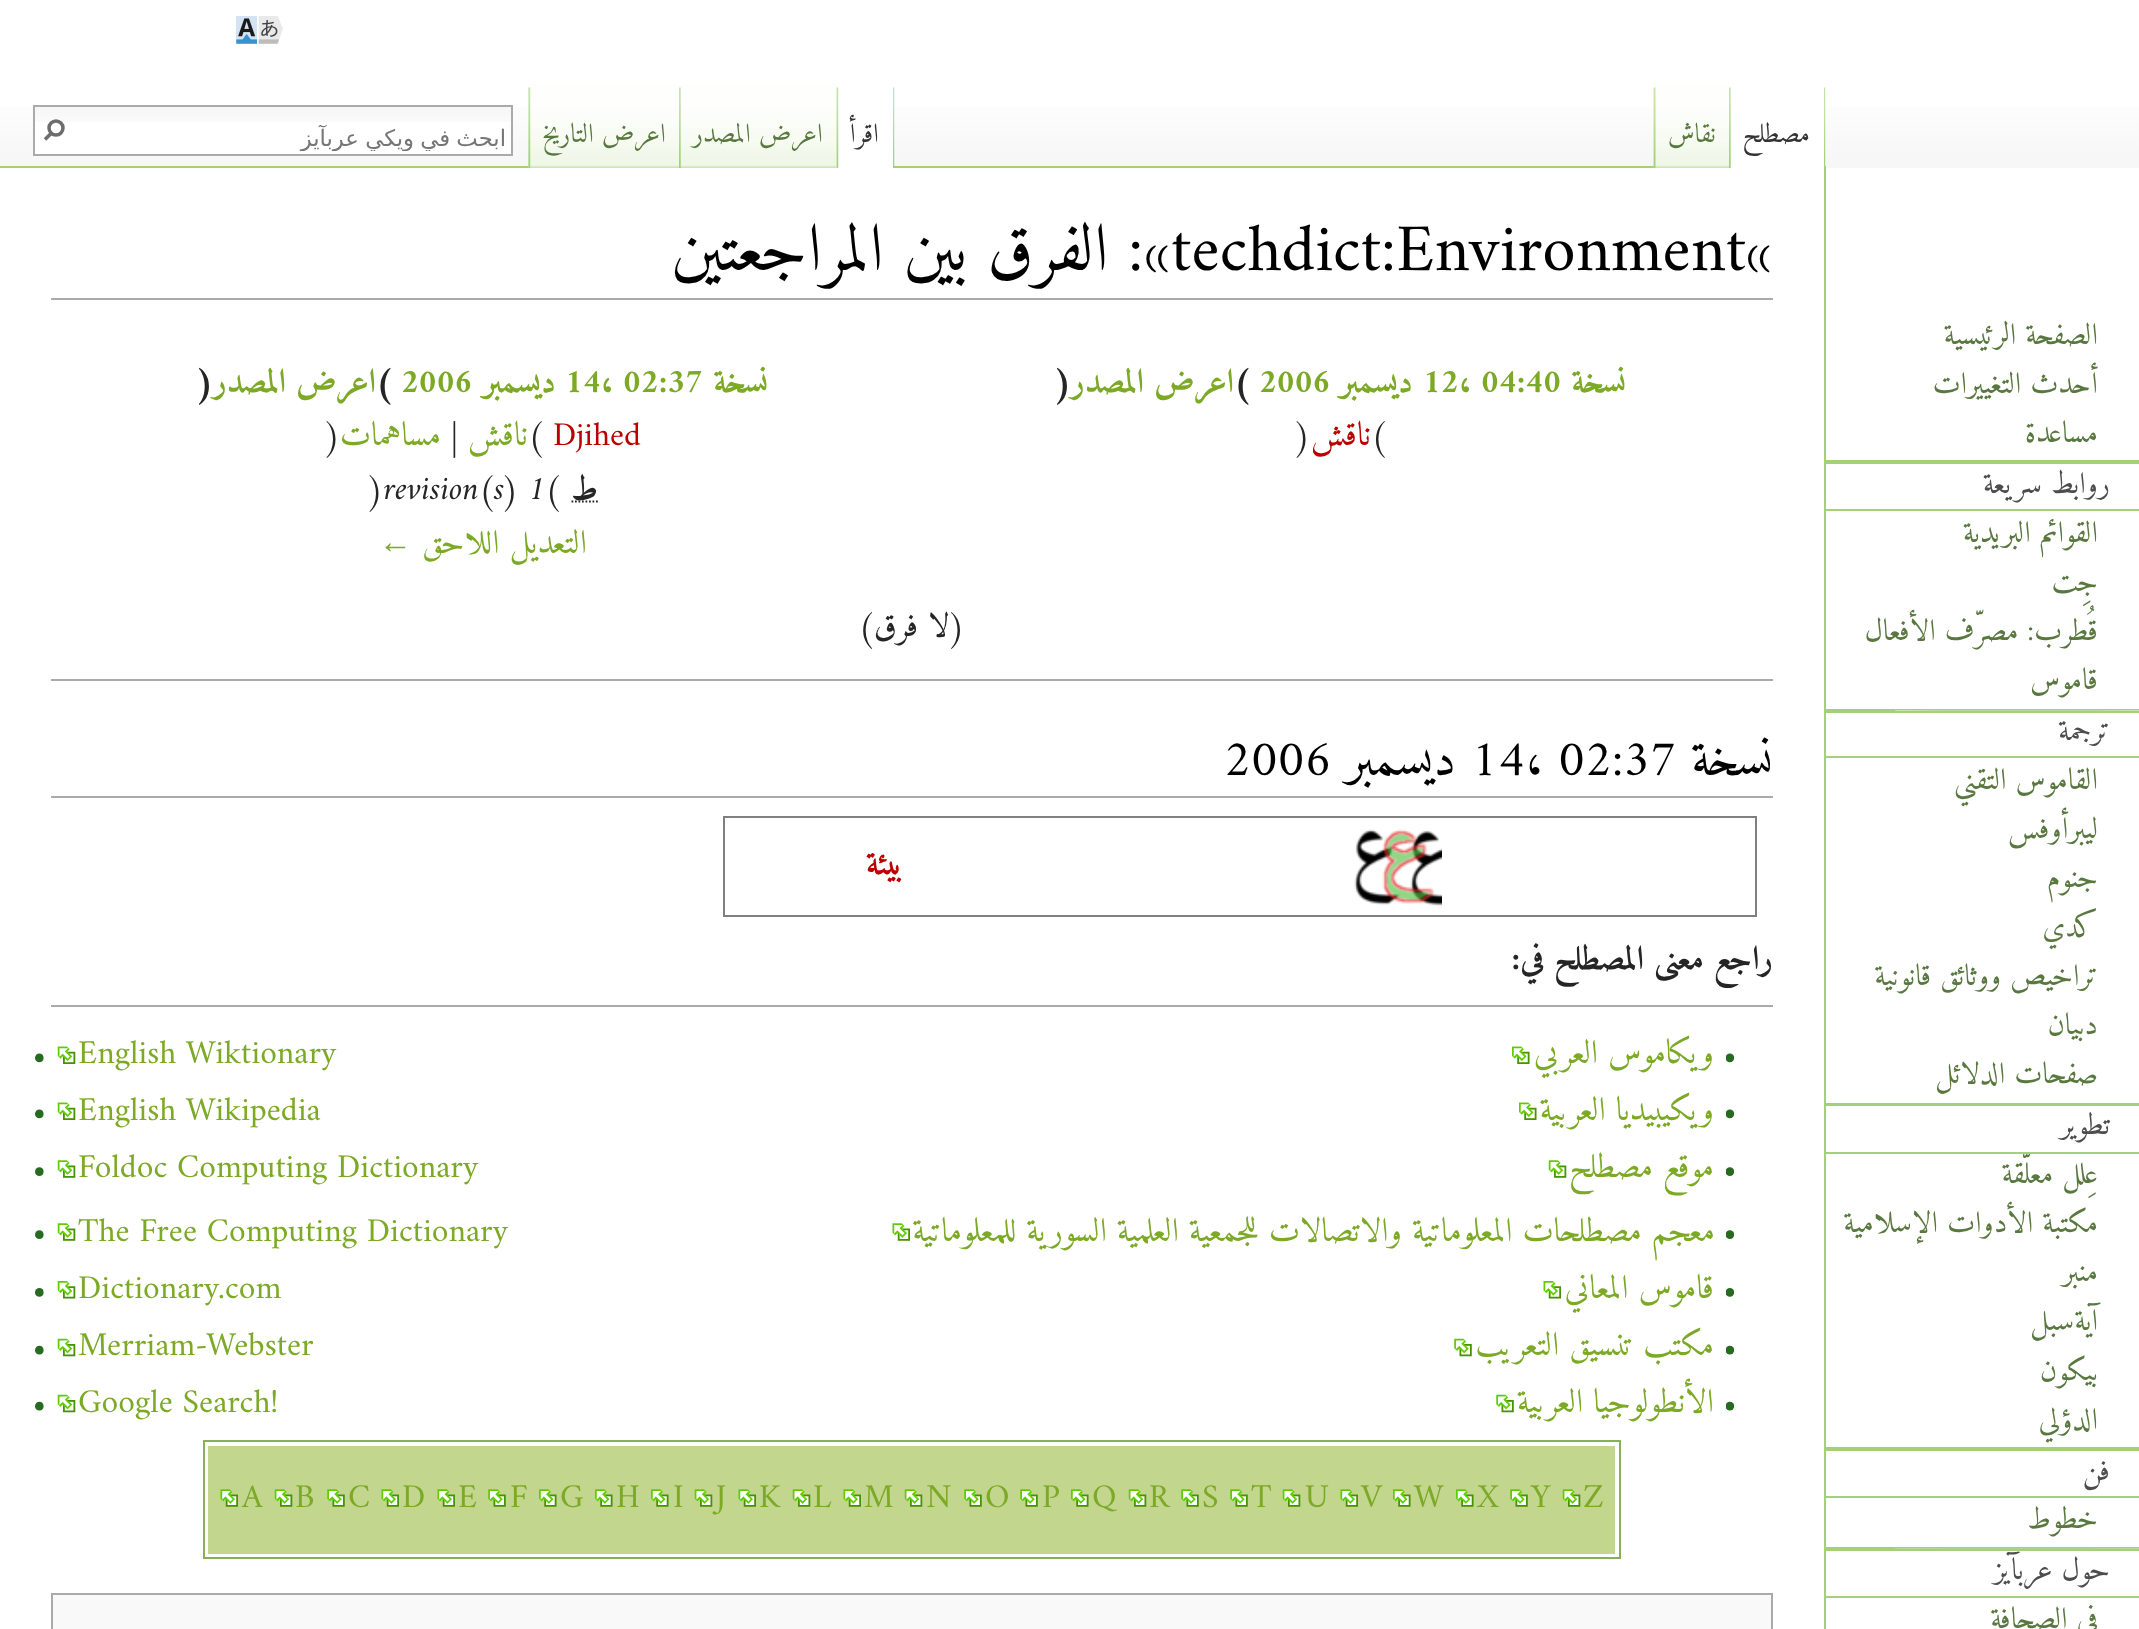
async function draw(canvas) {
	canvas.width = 2139;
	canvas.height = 1629;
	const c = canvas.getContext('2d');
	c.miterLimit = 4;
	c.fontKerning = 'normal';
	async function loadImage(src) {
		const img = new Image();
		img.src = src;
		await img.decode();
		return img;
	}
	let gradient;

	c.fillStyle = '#fff';
	c.fillRect(0, 0, 2139, 1629);
	gradient = c.createLinearGradient(1070, 0, 1070, 168);
	gradient.addColorStop(0.5, '#fff');
	gradient.addColorStop(1, '#f6f6f6');
	c.fillStyle = gradient;
	c.fillRect(0, 107, 2139, 61);
	c.drawImage(await loadImage('img1.png'), 236, 16, 47, 28);
	c.drawImage(await loadImage('img2.png'), 1824, 87, 2, 79);
	c.drawImage(await loadImage('img3.png'), 1653, 87, 1, 79);
	c.fillStyle = '#fff';
	c.fillRect(1729, 107, 95, 61);
	c.drawImage(await loadImage('img4.png'), 1729, 87, 2, 81);
	c.direction = 'rtl';
	c.font = '27px Amiri';
	c.fillStyle = '#333';
	c.fillText('مصطلح', 1810, 142);
	c.fillStyle = '#a4d176';
	c.fillRect(0, 166, 1654, 2);
	c.drawImage(await loadImage('img5.png'), 1653, 84, 76, 84);
	c.drawImage(await loadImage('img6.png'), 1653, 87, 3, 81);
	c.fillStyle = '#59783f';
	c.fillText('نقاش', 1716, 142);
	c.drawImage(await loadImage('img2.png'), 893, 87, 2, 79);
	c.drawImage(await loadImage('img7.png'), 528, 87, 1, 79);
	c.fillStyle = '#fff';
	c.fillRect(836, 107, 57, 61);
	c.drawImage(await loadImage('img8.png'), 836, 87, 3, 81);
	c.fillStyle = '#333';
	c.fillText('اقرأ', 879, 142);
	c.drawImage(await loadImage('img9.png'), 679, 84, 157, 84);
	c.drawImage(await loadImage('img10.png'), 679, 87, 2, 81);
	c.fillStyle = '#59783f';
	c.fillText('اعرض المصدر', 823, 142);
	c.drawImage(await loadImage('img11.png'), 528, 84, 151, 84);
	c.drawImage(await loadImage('img12.png'), 528, 87, 3, 81);
	c.fillText('اعرض التاريخ', 666, 142);
	c.fillStyle = '#fff';
	c.fillRect(35, 122, 476, 32);
	c.drawImage(await loadImage('img13.png'), 35, 107, 476, 15);
	c.strokeStyle = '#aaa';
	c.lineWidth = 2;
	c.strokeRect(34, 106, 478, 49);
	c.save();
	c.beginPath();
	c.rect(105, 124, 401, 27);
	c.clip();
	c.wordSpacing = '-1px';
	c.font = '22.75px DejaVu Sans';
	c.fillStyle = '#757575';
	c.fillText('ابحث في ويكي عربآيز', 506, 146);
	c.restore();
	c.beginPath();
	c.moveTo(45, 139.5);
	c.lineTo(52, 132.5);
	c.strokeStyle = '#6c6c6c';
	c.lineWidth = 3.5;
	c.stroke();
	c.beginPath();
	c.arc(56, 128, 7, 0, 2 * Math.PI);
	c.stroke();
	c.fillStyle = '#a5d07a';
	c.fillRect(1824, 460, 315, 2);
	c.fillRect(1824, 313, 2, 149);
	c.font = '30.25px Amiri';
	c.fillStyle = '#59783f';
	for (const [text, x, y] of [
		['الصفحة الرئيسية', 2098, 344],
		['أحدث التغييرات', 2098, 393],
		['مساعدة', 2098, 442],
	]) {
		c.fillText(text, x, y);
	}
	for (const [x, y, w, h, color] of [
		[1824, 709, 315, 2, '#a5d07a'],
		[1824, 462, 2, 249, '#a5d07a'],
		[1825, 462, 314, 2, '#a5d07a'],
		[1825, 509, 314, 2, '#a5d07a'],
	]) {
		c.fillStyle = color;
		c.fillRect(x, y, w, h);
	}
	c.fillStyle = '#4d4d4d';
	c.fillText('روابط سريعة', 2110, 493);
	c.fillStyle = '#59783f';
	for (const [text, x, y] of [
		['القوائم البريدية', 2098, 542],
		['جِت', 2098, 591],
		['قُطرب: مصرّف الأفعال', 2098, 640],
		['قاموس', 2098, 689],
	]) {
		c.fillText(text, x, y);
	}
	c.drawImage(await loadImage('img14.png'), 1895, 710, 244, 1);
	for (const [x, y, w, h, color] of [
		[1824, 1103, 315, 1, '#a5d07a'],
		[1824, 711, 2, 393, '#a5d07a'],
		[1825, 711, 314, 2, '#a5d07a'],
		[1825, 756, 314, 2, '#a5d07a'],
	]) {
		c.fillStyle = color;
		c.fillRect(x, y, w, h);
	}
	c.fillStyle = '#4d4d4d';
	c.fillText('ترجمة', 2110, 740);
	c.fillStyle = '#59783f';
	for (const [text, x, y] of [
		['القاموس التقني', 2098, 789],
		['ليبرأوفس', 2098, 838],
		['جنوم', 2098, 887],
		['كدي', 2098, 936],
		['تراخيص ووثائق قانونية', 2098, 985],
		['دبيان', 2098, 1034],
		['صفحات الدلائل', 2098, 1083],
	]) {
		c.fillText(text, x, y);
	}
	for (const [x, y, w, h, color] of [
		[1824, 1447, 315, 2, '#a5d07a'],
		[1824, 1104, 2, 345, '#a5d07a'],
		[1825, 1104, 314, 2, '#a5d07a'],
	]) {
		c.fillStyle = color;
		c.fillRect(x, y, w, h);
	}
	c.fillStyle = '#59783f';
	c.fillText('عِلل معلّقة', 2098, 1183);
	c.fillStyle = '#a5d07a';
	c.fillRect(1825, 1152, 314, 2);
	c.fillStyle = '#4d4d4d';
	c.fillText('تطوير', 2110, 1134);
	c.fillStyle = '#59783f';
	for (const [text, x, y] of [
		['مكتبة الأدوات الإسلامية', 2098, 1232],
		['منبر', 2098, 1281],
		['آية‌سبل', 2098, 1330],
		['بيكون', 2098, 1380],
		['الدؤلي', 2098, 1429],
	]) {
		c.fillText(text, x, y);
	}
	for (const [x, y, w, h, color] of [
		[1824, 1547, 315, 2, '#a5d07a'],
		[1824, 1449, 2, 180, '#a5d07a'],
		[1825, 1449, 314, 2, '#a5d07a'],
		[1825, 1496, 314, 2, '#a5d07a'],
	]) {
		c.fillStyle = color;
		c.fillRect(x, y, w, h);
	}
	c.fillStyle = '#4d4d4d';
	c.fillText('فن', 2110, 1480);
	c.fillStyle = '#59783f';
	c.fillText('خطوط', 2098, 1528);
	c.drawImage(await loadImage('img15.png'), 1895, 1548, 244, 1);
	c.fillStyle = '#a5d07a';
	c.fillRect(1825, 1549, 314, 2);
	c.fillRect(1825, 1596, 314, 2);
	c.fillStyle = '#4d4d4d';
	c.fillText('حول عربآيز', 2110, 1579);
	c.fillStyle = '#59783f';
	c.fillText('في الصحافة', 2098, 1628);
	c.fillStyle = '#a4d176';
	c.fillRect(1824, 166, 2, 147);
	c.fillStyle = '#aaa';
	c.fillRect(51, 298, 1722, 2);
	c.direction = 'ltr';
	c.font = '67.25px Amiri';
	c.fillStyle = '#000';
	c.fillText('techdict:Environment«', 1171, 270);
	c.direction = 'rtl';
	c.fillText('»: الفرق بين المراجعتين', 1171, 270);
	c.font = 'bold 33.6px Amiri';
	c.fillStyle = '#7ca926';
	c.fillText('نسخة', 1626, 392);
	c.direction = 'ltr';
	c.fillText('12، 04:40', 1423, 392);
	c.direction = 'rtl';
	c.fillText('ديسمبر', 1413, 392);
	c.direction = 'ltr';
	c.fillText('2006', 1259, 392);
	c.fillStyle = '#252525';
	c.fillText('(', 1234, 392);
	c.direction = 'rtl';
	c.fillStyle = '#7ca926';
	c.fillText('اعرض المصدر', 1234, 392);
	c.direction = 'ltr';
	c.fillStyle = '#252525';
	c.fillText(')', 1056, 392);
	c.font = '33.6px Amiri';
	c.fillText('(', 1371, 445);
	c.direction = 'rtl';
	c.fillStyle = '#ba0000';
	c.fillText('ناقش', 1371, 445);
	c.direction = 'ltr';
	c.fillStyle = '#252525';
	c.fillText(')', 1295, 445);
	c.direction = 'rtl';
	c.font = 'bold 33.6px Amiri';
	c.fillStyle = '#7ca926';
	c.fillText('نسخة', 768, 392);
	c.direction = 'ltr';
	c.fillText('14، 02:37', 565, 392);
	c.direction = 'rtl';
	c.fillText('ديسمبر', 556, 392);
	c.direction = 'ltr';
	c.fillText('2006', 401, 392);
	c.fillStyle = '#252525';
	c.fillText('(', 376, 392);
	c.direction = 'rtl';
	c.fillStyle = '#7ca926';
	c.fillText('اعرض المصدر', 376, 392);
	c.direction = 'ltr';
	c.fillStyle = '#252525';
	c.fillText(')', 198, 392);
	c.font = '33.6px Amiri';
	c.fillStyle = '#ba0000';
	c.fillText('Djihed', 553, 445);
	c.fillStyle = '#252525';
	c.fillText('(', 528, 445);
	c.direction = 'rtl';
	c.fillStyle = '#7ca926';
	c.fillText('ناقش', 528, 445);
	c.direction = 'ltr';
	c.fillStyle = '#252525';
	c.fillText('|', 451, 445);
	c.direction = 'rtl';
	c.fillStyle = '#7ca926';
	c.fillText('مساهمات', 441, 445);
	c.direction = 'ltr';
	c.fillStyle = '#252525';
	c.fillText(')', 325, 445);
	c.beginPath();
	c.moveTo(571.5, 501.5);
	c.lineTo(598, 501.5);
	c.strokeStyle = '#252525';
	c.lineWidth = 1.8;
	c.setLineDash([1.75, 1.75]);
	c.stroke();
	c.direction = 'rtl';
	c.font = 'bold 33.6px Amiri';
	c.fillText('ط', 598, 499);
	c.direction = 'ltr';
	c.font = 'italic 33.6px Amiri';
	c.fillText(')revision(s) 1(', 368, 499);
	c.direction = 'rtl';
	c.font = '33.6px Amiri';
	c.fillStyle = '#7ca926';
	c.fillText('التعديل اللاحق', 587, 553);
	c.font = '33.6px Liberation Sans';
	c.fillText('←', 412, 553);
	c.font = '33.6px Amiri';
	c.fillStyle = '#252525';
	c.fillText('(لا فرق)', 965, 636);
	c.fillStyle = '#aaa';
	c.fillRect(51, 679, 1722, 2);
	c.fillRect(51, 796, 1722, 2);
	c.font = '50.5px Amiri';
	c.fillStyle = '#000';
	c.fillText('نسخة', 1773, 775);
	c.direction = 'ltr';
	c.fillText('14، 02:37', 1471, 775);
	c.direction = 'rtl';
	c.fillText('ديسمبر', 1456, 775);
	c.direction = 'ltr';
	c.fillText('2006', 1224, 775);
	c.strokeStyle = '#808080';
	c.lineWidth = 2;
	c.setLineDash([]);
	c.strokeRect(724, 817, 1032, 99);
	c.drawImage(await loadImage('img16.png'), 1354, 829, 88, 77);
	c.direction = 'rtl';
	c.font = 'bold 33.6px Amiri';
	c.fillStyle = '#ba0000';
	c.fillText('بيئة', 903, 874);
	c.fillStyle = '#252525';
	c.fillText('راجع معنى المصطلح في:', 1773, 969);
	c.fillStyle = '#aaa';
	c.fillRect(51, 1005, 1722, 2);
	c.drawImage(await loadImage('img17.png'), 1726, 1053, 8, 10);
	c.font = '33.6px Amiri';
	c.fillStyle = '#7ca926';
	c.fillText('ويكاموس العربي', 1714, 1063);
	c.drawImage(await loadImage('img18.png'), 1512, 1046, 18, 19);
	c.drawImage(await loadImage('img17.png'), 1726, 1109, 8, 10);
	c.fillText('ويكيبيديا العربية', 1714, 1120);
	c.drawImage(await loadImage('img18.png'), 1519, 1102, 18, 19);
	c.drawImage(await loadImage('img19.png'), 1726, 1167, 8, 9);
	c.fillText('موقع مصطلح', 1714, 1177);
	c.drawImage(await loadImage('img20.png'), 1548, 1160, 19, 18);
	c.drawImage(await loadImage('img19.png'), 1726, 1230, 8, 9);
	c.fillText('معجم مصطلحات المعلوماتية والاتصالات للجمعية العلمية السورية للمعلوماتية', 1715, 1241);
	c.drawImage(await loadImage('img21.png'), 892, 1223, 19, 18);
	c.drawImage(await loadImage('img22.png'), 1726, 1288, 8, 9);
	c.fillText('قاموس المعاني', 1714, 1298);
	c.drawImage(await loadImage('img23.png'), 1543, 1281, 19, 18);
	c.drawImage(await loadImage('img24.png'), 1726, 1345, 8, 10);
	c.fillText('مكتب تنسيق التعريب', 1714, 1355);
	c.drawImage(await loadImage('img25.png'), 1454, 1338, 18, 19);
	c.drawImage(await loadImage('img24.png'), 1726, 1401, 8, 10);
	c.fillText('الأنطولوجيا العربية', 1714, 1412);
	c.drawImage(await loadImage('img25.png'), 1496, 1394, 18, 19);
	c.drawImage(await loadImage('img26.png'), 35, 1053, 9, 10);
	c.direction = 'ltr';
	c.fillText('English Wiktionary', 78, 1063);
	c.drawImage(await loadImage('img27.png'), 57, 1046, 19, 19);
	c.drawImage(await loadImage('img26.png'), 35, 1109, 9, 10);
	c.fillText('English Wikipedia', 78, 1120);
	c.drawImage(await loadImage('img27.png'), 57, 1102, 19, 19);
	c.drawImage(await loadImage('img28.png'), 35, 1167, 9, 9);
	c.fillText('Foldoc Computing Dictionary', 78, 1177);
	c.drawImage(await loadImage('img20.png'), 57, 1160, 19, 18);
	c.drawImage(await loadImage('img28.png'), 35, 1230, 9, 9);
	c.fillText('The Free Computing Dictionary', 78, 1241);
	c.drawImage(await loadImage('img20.png'), 57, 1223, 19, 18);
	c.drawImage(await loadImage('img29.png'), 35, 1288, 9, 9);
	c.fillText('Dictionary.com', 78, 1298);
	c.drawImage(await loadImage('img30.png'), 57, 1281, 19, 18);
	c.drawImage(await loadImage('img31.png'), 35, 1345, 9, 10);
	c.fillText('Merriam-Webster', 78, 1355);
	c.drawImage(await loadImage('img32.png'), 57, 1338, 19, 19);
	c.drawImage(await loadImage('img31.png'), 35, 1401, 9, 10);
	c.fillText('Google Search!', 78, 1412);
	c.drawImage(await loadImage('img32.png'), 57, 1394, 19, 19);
	c.strokeStyle = '#88b157';
	c.strokeRect(204, 1441, 1416, 117);
	c.fillStyle = '#c2d68e';
	c.fillRect(208, 1446, 1407, 108);
	c.fillStyle = '#7ca926';
	c.fillText('Z', 1583, 1507);
	c.drawImage(await loadImage('img33.png'), 1562, 1489, 19, 18);
	c.fillText('Y', 1531, 1507);
	c.drawImage(await loadImage('img34.png'), 1510, 1489, 18, 18);
	c.fillText('X', 1477, 1507);
	c.drawImage(await loadImage('img35.png'), 1456, 1489, 18, 18);
	c.fillText('W', 1414, 1507);
	c.drawImage(await loadImage('img35.png'), 1393, 1489, 18, 18);
	c.fillText('V', 1361, 1507);
	c.drawImage(await loadImage('img36.png'), 1340, 1489, 18, 18);
	c.fillText('U', 1305, 1507);
	c.drawImage(await loadImage('img33.png'), 1282, 1489, 19, 18);
	c.fillText('T', 1251, 1507);
	c.drawImage(await loadImage('img34.png'), 1230, 1489, 18, 18);
	c.fillText('S', 1202, 1507);
	c.drawImage(await loadImage('img34.png'), 1181, 1489, 18, 18);
	c.fillText('R', 1149, 1507);
	c.drawImage(await loadImage('img33.png'), 1128, 1489, 19, 18);
	c.fillText('Q', 1092, 1507);
	c.drawImage(await loadImage('img35.png'), 1071, 1489, 18, 18);
	c.fillText('P', 1042, 1507);
	c.drawImage(await loadImage('img34.png'), 1020, 1489, 18, 18);
	c.fillText('O', 985, 1507);
	c.drawImage(await loadImage('img34.png'), 964, 1489, 18, 18);
	c.fillText('N', 926, 1507);
	c.drawImage(await loadImage('img33.png'), 904, 1489, 19, 18);
	c.fillText('M', 864, 1507);
	c.drawImage(await loadImage('img36.png'), 843, 1489, 18, 18);
	c.fillText('L', 813, 1507);
	c.drawImage(await loadImage('img33.png'), 792, 1489, 19, 18);
	c.fillText('K', 759, 1507);
	c.drawImage(await loadImage('img36.png'), 738, 1489, 18, 18);
	c.drawImage(await loadImage('img33.png'), 694, 1489, 19, 18);
	c.fillText('J', 716, 1507);
	c.fillText('I', 673, 1507);
	c.drawImage(await loadImage('img35.png'), 651, 1489, 18, 18);
	c.fillText('H', 616, 1507);
	c.drawImage(await loadImage('img35.png'), 595, 1489, 18, 18);
	c.fillText('G', 560, 1507);
	c.drawImage(await loadImage('img35.png'), 539, 1489, 18, 18);
	c.fillText('F', 510, 1507);
	c.drawImage(await loadImage('img34.png'), 488, 1489, 18, 18);
	c.fillText('E', 458, 1507);
	c.drawImage(await loadImage('img36.png'), 437, 1489, 18, 18);
	c.fillText('D', 402, 1507);
	c.drawImage(await loadImage('img36.png'), 381, 1489, 18, 18);
	c.fillText('C', 348, 1507);
	c.drawImage(await loadImage('img34.png'), 327, 1489, 18, 18);
	c.fillText('B', 295, 1507);
	c.drawImage(await loadImage('img33.png'), 274, 1489, 19, 18);
	c.fillText('A', 242, 1507);
	c.drawImage(await loadImage('img36.png'), 220, 1489, 18, 18);
	c.fillStyle = '#f9f9f9';
	c.beginPath();
	c.rect(52, 1594, 1720, 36);
	c.fill();
	c.strokeStyle = '#aaa';
	c.stroke();
}

draw(document.querySelector('canvas'));
